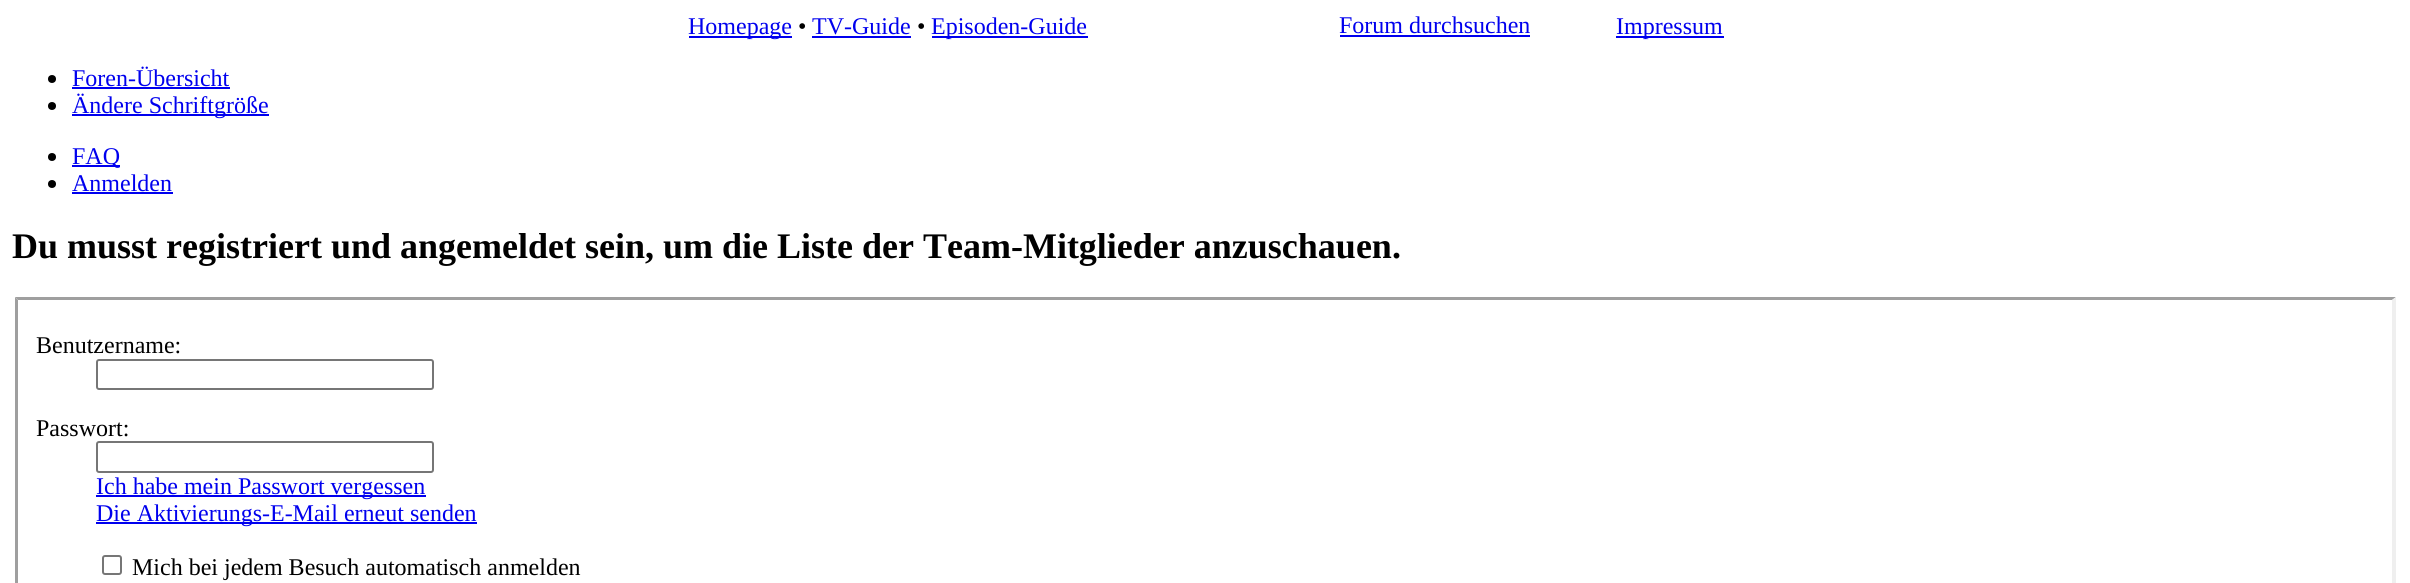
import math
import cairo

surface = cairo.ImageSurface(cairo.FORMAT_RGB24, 2410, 583)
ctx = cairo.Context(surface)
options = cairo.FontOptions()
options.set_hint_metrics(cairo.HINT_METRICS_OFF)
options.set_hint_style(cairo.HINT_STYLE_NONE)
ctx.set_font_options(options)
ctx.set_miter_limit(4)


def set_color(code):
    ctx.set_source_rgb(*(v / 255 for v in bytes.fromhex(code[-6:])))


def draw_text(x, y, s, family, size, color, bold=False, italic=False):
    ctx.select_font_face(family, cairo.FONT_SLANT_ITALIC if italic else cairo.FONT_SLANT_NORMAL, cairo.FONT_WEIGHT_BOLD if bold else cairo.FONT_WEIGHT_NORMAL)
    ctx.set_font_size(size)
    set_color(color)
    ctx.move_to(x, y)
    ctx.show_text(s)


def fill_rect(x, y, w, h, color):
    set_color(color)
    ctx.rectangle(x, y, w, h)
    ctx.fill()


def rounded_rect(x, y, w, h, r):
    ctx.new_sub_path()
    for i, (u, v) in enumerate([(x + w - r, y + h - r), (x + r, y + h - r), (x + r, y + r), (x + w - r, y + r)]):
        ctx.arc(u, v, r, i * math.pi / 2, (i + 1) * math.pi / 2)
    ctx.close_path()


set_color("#ffffff")
ctx.paint()
fill_rect(689, 36, 103, 2, "#0000ee")
draw_text(688, 34, "Homepage", "Liberation Serif", 24, "#0000ee")
draw_text(798, 34, "•", "Liberation Serif", 24, "#000000")
draw_text(812, 34, "TV-Guide", "Liberation Serif", 24, "#0000ee")
fill_rect(812, 36, 99, 2, "#0000ee")
draw_text(917, 34, "•", "Liberation Serif", 24, "#000000")
fill_rect(932, 36, 156, 2, "#0000ee")
draw_text(931, 34, "Episoden-Guide", "Liberation Serif", 24, "#0000ee")
draw_text(1339, 33, "Forum durchsuchen", "Liberation Serif", 24, "#0000ee")
fill_rect(1340, 35, 190, 2, "#0000ee")
fill_rect(1616, 36, 108, 2, "#0000ee")
draw_text(1616, 34, "Impressum", "Liberation Serif", 24, "#0000ee")
set_color("#000000")
ctx.new_path()
ctx.arc(52, 79, 4, 0, 2 * math.pi)
ctx.fill()
draw_text(72, 86, "Foren-Übersicht", "Liberation Serif", 24, "#0000ee")
fill_rect(72, 87, 158, 2, "#0000ee")
set_color("#000000")
ctx.new_path()
ctx.arc(52, 106, 4, 0, 2 * math.pi)
ctx.fill()
fill_rect(72, 114, 197, 2, "#0000ee")
draw_text(72, 113, "Ändere Schriftgröße", "Liberation Serif", 24, "#0000ee")
set_color("#000000")
ctx.new_path()
ctx.arc(52, 157, 4, 0, 2 * math.pi)
ctx.fill()
fill_rect(72, 165, 48, 2, "#0000ee")
draw_text(72, 164, "FAQ", "Liberation Serif", 24, "#0000ee")
set_color("#000000")
ctx.new_path()
ctx.arc(52, 184, 4, 0, 2 * math.pi)
ctx.fill()
draw_text(72, 191, "Anmelden", "Liberation Serif", 24, "#0000ee")
fill_rect(72, 192, 101, 2, "#0000ee")
draw_text(12, 258, "Du musst registriert und angemeldet sein, um die Liste der Team-Mitglieder anzuschauen.", "Liberation Serif", 36, "#000000", bold=True)
set_color("#9f9f9f")
ctx.new_path()
ctx.move_to(15, 297)
ctx.line_to(2396, 297)
ctx.line_to(2392, 300)
ctx.line_to(18, 300)
ctx.close_path()
ctx.fill()
set_color("#efefef")
ctx.new_path()
ctx.move_to(2396, 297)
ctx.line_to(2396, 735)
ctx.line_to(2392, 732)
ctx.line_to(2392, 300)
ctx.close_path()
ctx.fill()
set_color("#9f9f9f")
ctx.new_path()
ctx.move_to(15, 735)
ctx.line_to(15, 297)
ctx.line_to(18, 300)
ctx.line_to(18, 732)
ctx.close_path()
ctx.fill()
draw_text(36, 353, "Benutzername:", "Liberation Serif", 24, "#000000")
rounded_rect(97, 360, 336, 29, 2)
set_color("#767676")
ctx.stroke()
draw_text(36, 436, "Passwort:", "Liberation Serif", 24, "#000000")
rounded_rect(97, 442, 336, 30, 2)
set_color("#767676")
ctx.stroke()
fill_rect(96, 495, 330, 2, "#0000ee")
draw_text(96, 494, "Ich habe mein Passwort vergessen", "Liberation Serif", 24, "#0000ee")
fill_rect(96, 522, 381, 2, "#0000ee")
draw_text(96, 521, "Die Aktivierungs-E-Mail erneut senden", "Liberation Serif", 24, "#0000ee")
rounded_rect(103, 556, 18, 18, 2)
set_color("#767676")
ctx.stroke()
draw_text(132, 575, "Mich bei jedem Besuch automatisch anmelden", "Liberation Serif", 24, "#000000")
surface.write_to_png("output.png")
